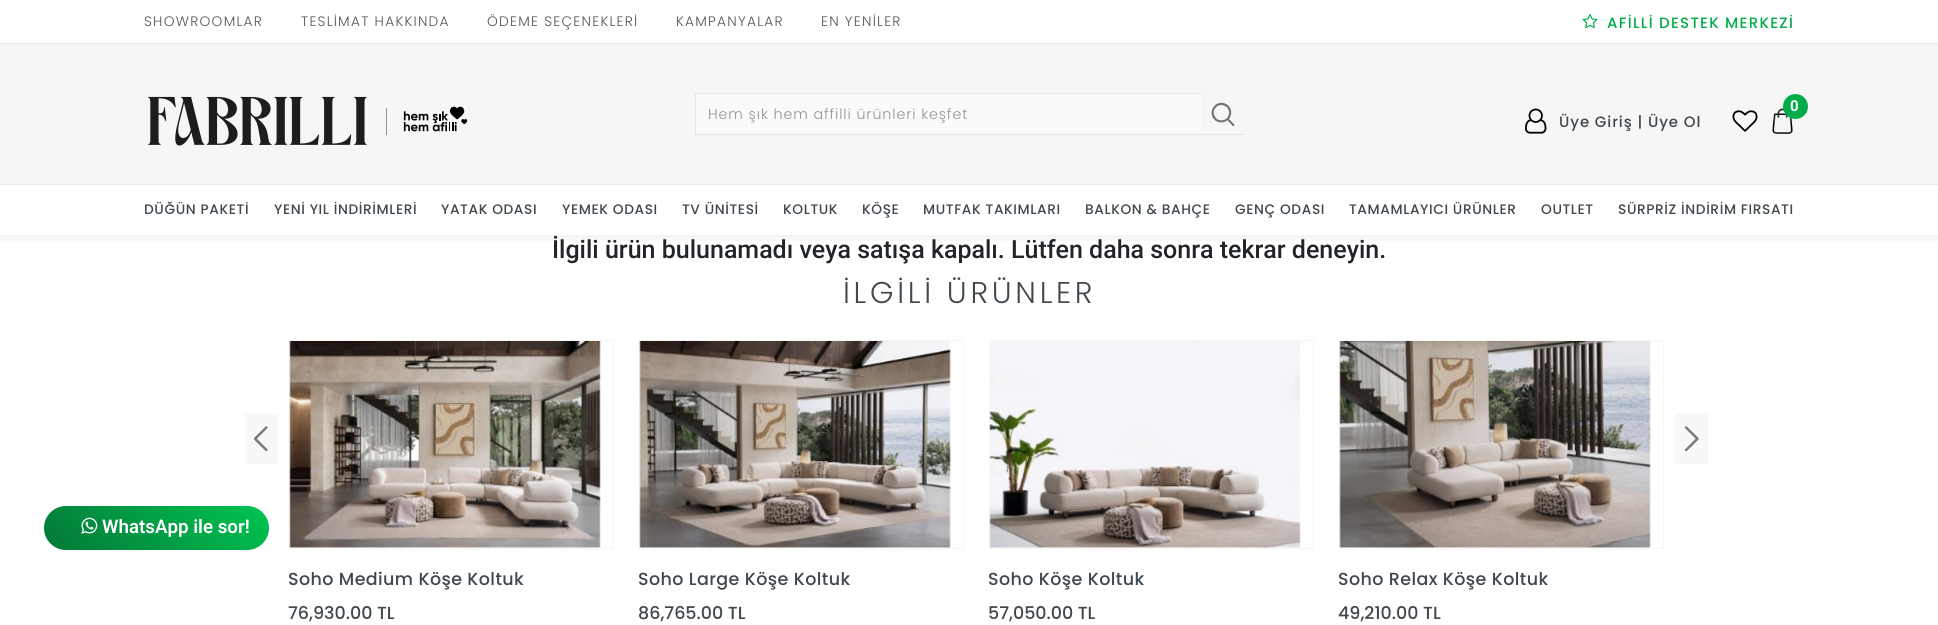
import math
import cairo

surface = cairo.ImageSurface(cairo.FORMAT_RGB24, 1938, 625)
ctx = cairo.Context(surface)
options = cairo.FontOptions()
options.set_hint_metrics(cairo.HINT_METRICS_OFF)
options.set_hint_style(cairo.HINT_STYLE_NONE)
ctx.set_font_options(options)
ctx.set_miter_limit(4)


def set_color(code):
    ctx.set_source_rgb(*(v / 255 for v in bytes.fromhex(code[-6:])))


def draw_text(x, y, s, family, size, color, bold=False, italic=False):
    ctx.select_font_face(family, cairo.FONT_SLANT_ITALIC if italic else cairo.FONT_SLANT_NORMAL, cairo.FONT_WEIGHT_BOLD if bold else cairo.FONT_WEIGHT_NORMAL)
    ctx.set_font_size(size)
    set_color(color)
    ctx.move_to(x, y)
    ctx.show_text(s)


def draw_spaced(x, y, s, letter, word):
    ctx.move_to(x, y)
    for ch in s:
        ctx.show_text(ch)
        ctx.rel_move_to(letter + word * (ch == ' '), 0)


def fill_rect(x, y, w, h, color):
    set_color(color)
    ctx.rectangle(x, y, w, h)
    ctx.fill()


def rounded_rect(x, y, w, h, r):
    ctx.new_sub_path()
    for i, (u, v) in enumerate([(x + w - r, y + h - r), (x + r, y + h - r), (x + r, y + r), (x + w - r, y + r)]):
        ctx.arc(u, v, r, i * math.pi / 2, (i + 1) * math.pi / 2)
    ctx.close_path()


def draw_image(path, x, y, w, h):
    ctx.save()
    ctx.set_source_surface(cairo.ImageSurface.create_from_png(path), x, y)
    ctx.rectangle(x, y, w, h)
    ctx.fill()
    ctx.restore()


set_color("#ffffff")
ctx.paint()
fill_rect(0, 43, 1938, 1, "#eaeaea")
ctx.select_font_face("Poppins Light")
ctx.set_font_size(13.75)
set_color("#555555")
draw_spaced(144, 26, "SHOWROOMLAR", 1.25, 0)
draw_spaced(301, 26, "TESLİMAT HAKKINDA", 1.25, 0)
draw_spaced(487, 26, "ÖDEME SEÇENEKLERİ", 1.25, 0)
draw_spaced(676, 26, "KAMPANYALAR", 1.25, 0)
draw_spaced(821, 26, "EN YENİLER", 1.25, 0)
draw_image("assets/img1.png", 1582, 13, 16, 16)
ctx.select_font_face("Poppins Medium")
ctx.set_font_size(15)
set_color("#02ad49")
draw_spaced(1607, 28, "AFİLLİ DESTEK MERKEZİ", 1.25, 0)
fill_rect(0, 44, 1938, 140, "#f6f6f6")
fill_rect(0, 184, 1938, 1, "#eaeaea")
draw_image("assets/img2.png", 148, 96, 320, 50)
fill_rect(696, 94, 505, 40, "#fafafa")
ctx.rectangle(695.5, 93.5, 549, 41)
set_color("#e5e5e5")
ctx.set_line_width(1)
ctx.stroke()
ctx.select_font_face("Poppins Light")
ctx.set_font_size(14.25)
set_color("#949494")
draw_spaced(708, 119, "Hem şık hem affilli ürünleri keşfet", 0.9, 0)
fill_rect(1201, 93, 44, 41, "#f6f6f6")
draw_image("assets/img3.png", 1211, 102, 24, 24)
draw_image("assets/img4.png", 1772, 108, 21, 26)
set_color("#02ad49")
ctx.arc(1795.5, 106.5, 12.5, 0, 2 * math.pi)
ctx.fill()
draw_text(1790, 111, "0", "Roboto", 15, "#ffffff", bold=True)
draw_image("assets/img5.png", 1525, 108, 22, 26)
ctx.select_font_face("Poppins Medium")
set_color("#40484e")
draw_spaced(1559, 127, "Üye Giriş | Üye Ol", 0.9, 0)
draw_image("assets/img6.png", 1732, 110, 26, 22)
ctx.set_font_size(13.75)
draw_spaced(144, 214, "DÜĞÜN PAKETİ", 0.6, 0)
draw_spaced(274, 214, "YENİ YIL İNDİRİMLERİ", 0.6, 0)
draw_spaced(441, 214, "YATAK ODASI", 0.6, 0)
draw_spaced(562, 214, "YEMEK ODASI", 0.6, 0)
draw_spaced(682, 214, "TV ÜNİTESİ", 0.6, 0)
draw_spaced(783, 214, "KOLTUK", 0.6, 0)
draw_spaced(862, 214, "KÖŞE", 0.6, 0)
draw_spaced(923, 214, "MUTFAK TAKIMLARI", 0.6, 0)
draw_spaced(1085, 214, "BALKON & BAHÇE", 0.6, 0)
draw_spaced(1235, 214, "GENÇ ODASI", 0.6, 0)
draw_spaced(1349, 214, "TAMAMLAYICI ÜRÜNLER", 0.6, 0)
draw_spaced(1541, 214, "OUTLET", 0.6, 0)
draw_spaced(1618, 214, "SÜRPRİZ İNDİRİM FIRSATI", 0.6, 0)
gradient = cairo.LinearGradient(969, 245, 969, 235)
gradient.add_color_stop_rgba(0, 0.212, 0.204, 0.176, 0)
gradient.add_color_stop_rgba(1, 0.212, 0.204, 0.176, 0.06)
ctx.set_source(gradient)
ctx.rectangle(0, 235, 1938, 6)
ctx.fill()
gradient = cairo.LinearGradient(89, 595, 223, 461)
gradient.add_color_stop_rgba(0, 0.016, 0.467, 0.216, 1)
gradient.add_color_stop_rgba(1, 0, 0.769, 0.318, 1)
ctx.set_source(gradient)
rounded_rect(44, 506, 225, 44, 22)
ctx.fill()
draw_image("assets/img7.png", 81, 517, 17, 17)
draw_text(102, 533, "WhatsApp ile sor!", "Roboto SemiBold", 18.75, "#ffffff")
draw_text(552, 258, "İlgili ürün bulunamadı veya satışa kapalı. Lütfen daha sonra tekrar deneyin.", "Roboto Medium", 25, "#212529")
ctx.select_font_face("Poppins Light")
ctx.set_font_size(30)
set_color("#40484e")
draw_spaced(843, 303, "İLGİLİ ÜRÜNLER", 3.75, 0)
fill_rect(245, 414, 33, 50, "#f8f8f8")
draw_image("assets/img8.png", 254, 426, 14, 25)
fill_rect(1675, 414, 33, 50, "#f8f8f8")
draw_image("assets/img9.png", 1684, 426, 15, 25)
ctx.rectangle(289.5, 340.5, 324, 208)
set_color("#f5f5f5")
ctx.stroke()
draw_image("assets/img10.png", 289, 341, 312, 207)
ctx.select_font_face("Poppins Medium")
ctx.set_font_size(17.5)
set_color("#40484e")
draw_spaced(288, 585, "Soho Medium Köşe Koltuk", 0.4, 0)
draw_text(288, 619, "76,930.00 TL", "Poppins Medium", 17.5, "#40484e")
ctx.rectangle(639.5, 340.5, 324, 208)
set_color("#f5f5f5")
ctx.stroke()
draw_image("assets/img11.png", 639, 341, 312, 207)
set_color("#40484e")
draw_spaced(638, 585, "Soho Large Köşe Koltuk", 0.4, 0)
draw_text(638, 619, "86,765.00 TL", "Poppins Medium", 17.5, "#40484e")
ctx.rectangle(989.5, 340.5, 324, 208)
set_color("#f5f5f5")
ctx.stroke()
draw_image("assets/img12.png", 989, 341, 312, 207)
set_color("#40484e")
draw_spaced(988, 585, "Soho Köşe Koltuk", 0.4, 0)
draw_text(988, 619, "57,050.00 TL", "Poppins Medium", 17.5, "#40484e")
ctx.rectangle(1339.5, 340.5, 324, 208)
set_color("#f5f5f5")
ctx.stroke()
draw_image("assets/img13.png", 1339, 341, 312, 207)
set_color("#40484e")
draw_spaced(1338, 585, "Soho Relax Köşe Koltuk", 0.4, 0)
draw_text(1338, 619, "49,210.00 TL", "Poppins Medium", 17.5, "#40484e")
surface.write_to_png("output.png")
